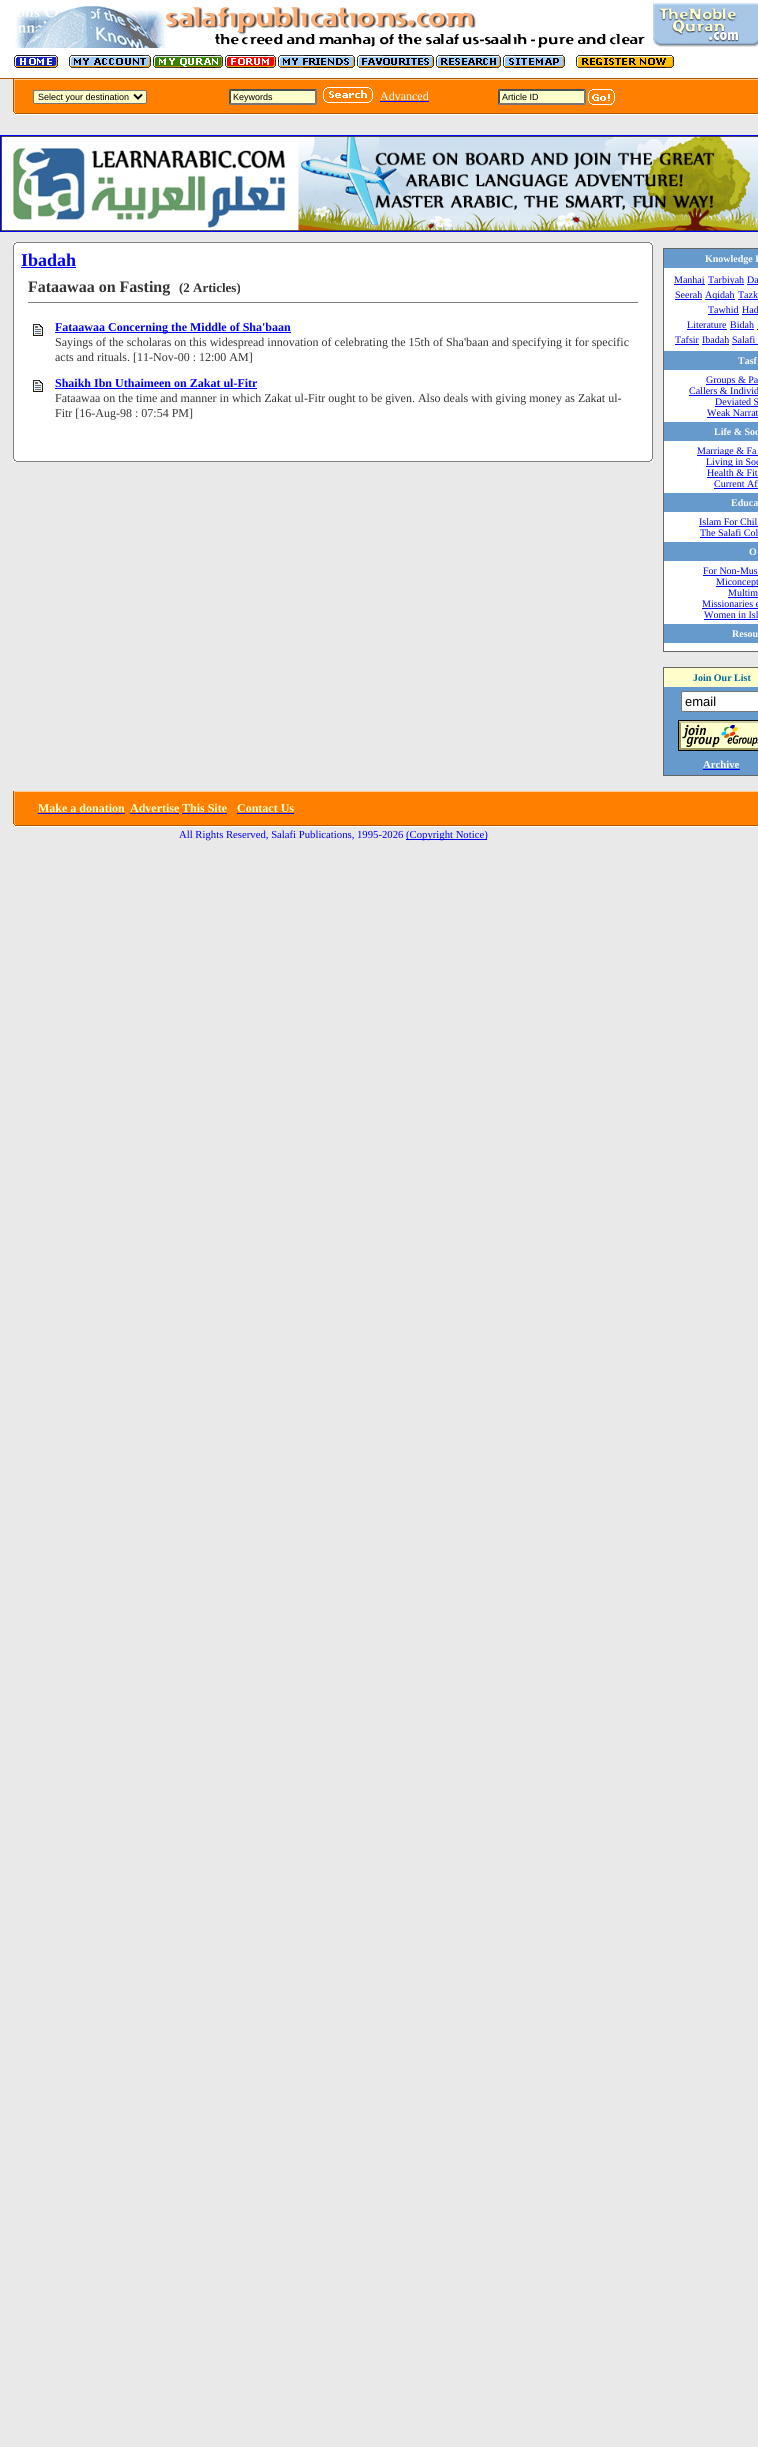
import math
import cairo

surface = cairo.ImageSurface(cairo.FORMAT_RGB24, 758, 2447)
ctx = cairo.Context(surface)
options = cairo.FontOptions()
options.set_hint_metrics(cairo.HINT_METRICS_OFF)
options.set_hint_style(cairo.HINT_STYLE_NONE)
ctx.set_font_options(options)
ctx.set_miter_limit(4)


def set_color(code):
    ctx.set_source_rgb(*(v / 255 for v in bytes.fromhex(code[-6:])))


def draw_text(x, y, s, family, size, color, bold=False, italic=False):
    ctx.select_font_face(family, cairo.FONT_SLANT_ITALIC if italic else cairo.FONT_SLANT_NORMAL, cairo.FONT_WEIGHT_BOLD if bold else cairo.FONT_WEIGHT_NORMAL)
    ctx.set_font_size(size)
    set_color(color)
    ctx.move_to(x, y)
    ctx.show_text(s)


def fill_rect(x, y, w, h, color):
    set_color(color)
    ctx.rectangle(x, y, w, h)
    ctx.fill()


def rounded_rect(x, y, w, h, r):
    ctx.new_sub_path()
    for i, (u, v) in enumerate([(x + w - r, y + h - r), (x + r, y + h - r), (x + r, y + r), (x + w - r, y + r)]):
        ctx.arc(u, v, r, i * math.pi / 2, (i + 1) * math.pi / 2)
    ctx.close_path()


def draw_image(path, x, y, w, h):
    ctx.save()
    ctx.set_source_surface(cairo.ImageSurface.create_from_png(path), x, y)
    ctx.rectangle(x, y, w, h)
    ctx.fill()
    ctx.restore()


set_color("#e9e9e9")
ctx.paint()
fill_rect(0, 0, 758, 78, "#ffffff")
draw_image("assets/img1.png", 14, 6, 631, 42)
draw_image("assets/img2.png", 652, 3, 106, 44)
draw_image("assets/img3.png", 14, 55, 44, 13)
draw_image("assets/img4.png", 69, 55, 82, 13)
draw_image("assets/img5.png", 153, 55, 70, 13)
draw_image("assets/img6.png", 225, 55, 51, 13)
draw_image("assets/img7.png", 278, 55, 77, 13)
draw_image("assets/img8.png", 357, 55, 77, 13)
draw_image("assets/img9.png", 436, 55, 65, 13)
draw_image("assets/img10.png", 503, 55, 62, 13)
draw_image("assets/img11.png", 576, 55, 98, 13)
fill_rect(0, 78, 758, 1, "#b05800")
fill_rect(14, 79, 744, 1, "#ffc992")
draw_image("assets/img12.png", 0, 79, 14, 1)
fill_rect(15, 80, 743, 33, "#ff8000")
draw_image("assets/img13.png", 0, 80, 16, 33)
set_color("#ffffcc")
rounded_rect(33.5, 90.5, 113, 13, 1.5)
ctx.fill_preserve()
set_color("#767676")
ctx.set_line_width(1)
ctx.stroke()
ctx.new_path()
ctx.move_to(134, 94.5)
ctx.line_to(138, 98.5)
ctx.line_to(142, 94.5)
set_color("#000000")
ctx.set_line_width(2)
ctx.stroke()
draw_text(38, 100, "Select your destination", "Liberation Sans", 9, "#000000")
fill_rect(229, 89, 88, 16, "#ffffcc")
set_color("#4f4f4f")
ctx.new_path()
ctx.move_to(229, 89)
ctx.line_to(317, 89)
ctx.line_to(315, 91)
ctx.line_to(231, 91)
ctx.close_path()
ctx.fill()
set_color("#767676")
ctx.new_path()
ctx.move_to(317, 89)
ctx.line_to(317, 105)
ctx.line_to(315, 103)
ctx.line_to(315, 91)
ctx.close_path()
ctx.fill()
ctx.new_path()
ctx.move_to(317, 105)
ctx.line_to(229, 105)
ctx.line_to(231, 103)
ctx.line_to(315, 103)
ctx.close_path()
ctx.fill()
set_color("#4f4f4f")
ctx.new_path()
ctx.move_to(229, 105)
ctx.line_to(229, 89)
ctx.line_to(231, 91)
ctx.line_to(231, 103)
ctx.close_path()
ctx.fill()
draw_text(233, 100, "Keywords", "Liberation Sans", 9, "#000000")
draw_image("assets/img14.png", 323, 87, 50, 16)
draw_text(380, 100, "Advanced", "Liberation Serif", 12, "#ffffff")
fill_rect(380, 101, 49, 1, "#0000ff")
fill_rect(498, 89, 88, 16, "#ffffcc")
set_color("#4f4f4f")
ctx.new_path()
ctx.move_to(498, 89)
ctx.line_to(586, 89)
ctx.line_to(584, 91)
ctx.line_to(500, 91)
ctx.close_path()
ctx.fill()
set_color("#767676")
ctx.new_path()
ctx.move_to(586, 89)
ctx.line_to(586, 105)
ctx.line_to(584, 103)
ctx.line_to(584, 91)
ctx.close_path()
ctx.fill()
ctx.new_path()
ctx.move_to(586, 105)
ctx.line_to(498, 105)
ctx.line_to(500, 103)
ctx.line_to(584, 103)
ctx.close_path()
ctx.fill()
set_color("#4f4f4f")
ctx.new_path()
ctx.move_to(498, 105)
ctx.line_to(498, 89)
ctx.line_to(500, 91)
ctx.line_to(500, 103)
ctx.close_path()
ctx.fill()
draw_text(502, 100, "Article ID", "Liberation Sans", 9, "#000000")
draw_image("assets/img15.png", 588, 89, 27, 16)
fill_rect(15, 113, 743, 1, "#b05800")
draw_image("assets/img16.png", 0, 113, 15, 1)
fill_rect(14, 114, 744, 1, "#ffffff")
ctx.rectangle(0.5, 135.5, 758, 96)
set_color("#0000ff")
ctx.set_line_width(1)
ctx.stroke()
draw_image("assets/img17.png", 1, 136, 757, 95)
fill_rect(14, 243, 638, 218, "#ffffff")
draw_image("assets/img18.png", 13, 242, 8, 8)
fill_rect(21, 242, 624, 1, "#808080")
draw_image("assets/img19.png", 645, 242, 8, 8)
fill_rect(13, 250, 1, 204, "#808080")
draw_text(21, 266, "Ibadah", "Liberation Serif", 18, "#0000ff", bold=True)
fill_rect(21, 267, 55, 1, "#0000ff")
draw_text(28, 292, "Fataawaa on Fasting", "Liberation Serif", 16, "#333333", bold=True)
draw_text(179, 292, "(2 Articles)", "Liberation Serif", 13, "#333333", bold=True)
fill_rect(28, 302, 610, 1, "#808080")
draw_image("assets/img20.png", 33, 324, 10, 12)
fill_rect(55, 332, 236, 1, "#0000ff")
draw_text(55, 331, "Fataawaa Concerning the Middle of Sha'baan", "Liberation Serif", 12, "#0000ff", bold=True)
draw_text(55, 346, "Sayings of the scholaras on this widespread innovation of celebrating the 15th of Sha'baan and specifying it for specific", "Liberation Serif", 12, "#333333")
draw_text(55, 361, "acts and rituals. [11-Nov-00 : 12:00 AM]", "Liberation Serif", 12, "#333333")
draw_image("assets/img20.png", 33, 380, 10, 12)
draw_text(55, 387, "Shaikh Ibn Uthaimeen on Zakat ul-Fitr", "Liberation Serif", 12, "#0000ff", bold=True)
fill_rect(55, 388, 202, 1, "#0000ff")
draw_text(55, 402, "Fataawaa on the time and manner in which Zakat ul-Fitr ought to be given. Also deals with giving money as Zakat ul-", "Liberation Serif", 12, "#333333")
draw_text(55, 417, "Fitr [16-Aug-98 : 07:54 PM]", "Liberation Serif", 12, "#333333")
fill_rect(652, 250, 1, 204, "#808080")
draw_image("assets/img21.png", 13, 454, 8, 8)
fill_rect(21, 461, 624, 1, "#808080")
draw_image("assets/img22.png", 645, 454, 8, 8)
fill_rect(663, 248, 95, 404, "#666666")
fill_rect(664, 268, 94, 383, "#ffffff")
fill_rect(664, 249, 94, 19, "#6699cc")
draw_text(705, 262, "Knowledge B", "Liberation Serif", 10, "#ffffff", bold=True)
fill_rect(674, 284, 31, 1, "#0000ff")
draw_text(674, 283, "Manhaj", "Liberation Serif", 10, "#0000ff")
fill_rect(708, 284, 36, 1, "#0000ff")
draw_text(708, 283, "Tarbiyah", "Liberation Serif", 10, "#0000ff")
draw_text(747, 283, "Da", "Liberation Serif", 10, "#0000ff")
fill_rect(747, 284, 11, 1, "#0000ff")
draw_text(675, 298, "Seerah", "Liberation Serif", 10, "#0000ff")
fill_rect(675, 299, 27, 1, "#0000ff")
fill_rect(705, 299, 30, 1, "#0000ff")
draw_text(705, 298, "Aqidah", "Liberation Serif", 10, "#0000ff")
draw_text(738, 298, "Tazk", "Liberation Serif", 10, "#0000ff")
fill_rect(738, 299, 20, 1, "#0000ff")
draw_text(708, 313, "Tawhid", "Liberation Serif", 10, "#0000ff")
fill_rect(708, 314, 31, 1, "#0000ff")
draw_text(742, 313, "Had", "Liberation Serif", 10, "#0000ff")
fill_rect(742, 314, 16, 1, "#0000ff")
draw_text(687, 328, "Literature", "Liberation Serif", 10, "#0000ff")
fill_rect(687, 329, 40, 1, "#0000ff")
draw_text(730, 328, "Bidah", "Liberation Serif", 10, "#0000ff")
fill_rect(730, 329, 24, 1, "#0000ff")
fill_rect(757, 329, 1, 1, "#0000ff")
draw_text(675, 343, "Tafsir", "Liberation Serif", 10, "#0000ff")
fill_rect(675, 344, 24, 1, "#0000ff")
draw_text(702, 343, "Ibadah", "Liberation Serif", 10, "#0000ff")
fill_rect(702, 344, 27, 1, "#0000ff")
draw_text(732, 343, "Salafi", "Liberation Serif", 10, "#0000ff")
fill_rect(732, 344, 26, 1, "#0000ff")
fill_rect(664, 351, 94, 19, "#6699cc")
draw_text(738, 364, "Tasf", "Liberation Serif", 10, "#ffffff", bold=True)
fill_rect(706, 384, 52, 1, "#0000ff")
draw_text(706, 383, "Groups & Pa", "Liberation Serif", 10, "#0000ff")
draw_text(689, 394, "Callers & Individ", "Liberation Serif", 10, "#0000ff")
fill_rect(689, 395, 69, 1, "#0000ff")
draw_text(715, 405, "Deviated S", "Liberation Serif", 10, "#0000ff")
fill_rect(715, 406, 43, 1, "#0000ff")
draw_text(707, 416, "Weak Narrat", "Liberation Serif", 10, "#0000ff")
fill_rect(707, 417, 51, 1, "#0000ff")
fill_rect(664, 422, 94, 19, "#6699cc")
draw_text(714, 435, "Life & Soc", "Liberation Serif", 10, "#ffffff", bold=True)
fill_rect(697, 455, 61, 1, "#0000ff")
draw_text(697, 454, "Marriage & Fa", "Liberation Serif", 10, "#0000ff")
fill_rect(706, 466, 52, 1, "#0000ff")
draw_text(706, 465, "Living in Soc", "Liberation Serif", 10, "#0000ff")
draw_text(707, 476, "Health & Fit", "Liberation Serif", 10, "#0000ff")
fill_rect(707, 477, 51, 1, "#0000ff")
draw_text(714, 487, "Current Af", "Liberation Serif", 10, "#0000ff")
fill_rect(714, 488, 44, 1, "#0000ff")
fill_rect(664, 493, 94, 19, "#6699cc")
draw_text(731, 506, "Educa", "Liberation Serif", 10, "#ffffff", bold=True)
draw_text(699, 525, "Islam For Chil", "Liberation Serif", 10, "#0000ff")
fill_rect(699, 526, 59, 1, "#0000ff")
draw_text(700, 536, "The Salafi Col", "Liberation Serif", 10, "#0000ff")
fill_rect(700, 537, 58, 1, "#0000ff")
fill_rect(664, 542, 94, 19, "#6699cc")
draw_text(749, 555, "O", "Liberation Serif", 10, "#ffffff", bold=True)
draw_text(703, 574, "For Non-Mus", "Liberation Serif", 10, "#0000ff")
fill_rect(703, 575, 55, 1, "#0000ff")
fill_rect(716, 586, 42, 1, "#0000ff")
draw_text(716, 585, "Miconcept", "Liberation Serif", 10, "#0000ff")
draw_text(728, 596, "Multim", "Liberation Serif", 10, "#0000ff")
fill_rect(728, 597, 30, 1, "#0000ff")
draw_text(702, 607, "Missionaries e", "Liberation Serif", 10, "#0000ff")
fill_rect(702, 608, 56, 1, "#0000ff")
draw_text(704, 618, "Women in Isl", "Liberation Serif", 10, "#0000ff")
fill_rect(704, 619, 54, 1, "#0000ff")
fill_rect(664, 624, 94, 19, "#6699cc")
draw_text(732, 637, "Resou", "Liberation Serif", 10, "#ffffff", bold=True)
fill_rect(663, 667, 95, 109, "#666666")
fill_rect(664, 687, 94, 88, "#6699cc")
fill_rect(664, 668, 94, 19, "#ffffcc")
draw_text(693, 681, "Join Our List", "Liberation Serif", 10, "#006699", bold=True)
set_color("#ffffff")
rounded_rect(681.5, 691.5, 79, 20, 1.5)
ctx.fill_preserve()
set_color("#767676")
ctx.stroke()
draw_text(685, 706, "email", "Liberation Sans", 13, "#000000")
draw_image("assets/img23.png", 678, 720, 80, 31)
draw_text(703, 768, "Archive", "Liberation Serif", 10.7, "#ffffff", bold=True)
fill_rect(703, 769, 37, 1, "#0000ff")
fill_rect(14, 791, 744, 1, "#ffc992")
draw_image("assets/img12.png", 0, 791, 14, 1)
fill_rect(16, 792, 742, 33, "#ff8000")
draw_image("assets/img24.png", 0, 792, 16, 33)
draw_text(38, 812, "Make a donation", "Liberation Serif", 12, "#ffffcc", bold=True)
fill_rect(38, 813, 87, 1, "#0000ff")
draw_text(130, 812, "Advertise", "Liberation Serif", 12, "#ffffcc", bold=True)
fill_rect(130, 813, 49, 1, "#0000ff")
draw_text(182, 812, "This Site", "Liberation Serif", 12, "#ffffcc", bold=True)
fill_rect(182, 813, 45, 1, "#0000ff")
draw_text(237, 812, "Contact Us", "Liberation Serif", 12, "#ffffcc", bold=True)
fill_rect(237, 813, 57, 1, "#0000ff")
fill_rect(15, 825, 743, 1, "#b05800")
draw_image("assets/img16.png", 0, 825, 15, 1)
fill_rect(14, 826, 744, 1, "#ffffff")
draw_text(179, 838, "All Rights Reserved, Salafi Publications, 1995-2026", "Liberation Serif", 10.7, "#0000ff")
fill_rect(406, 839, 81, 1, "#0000ff")
draw_text(406, 838, "(Copyright Notice)", "Liberation Serif", 10.7, "#0000ff")
surface.write_to_png("output.png")
